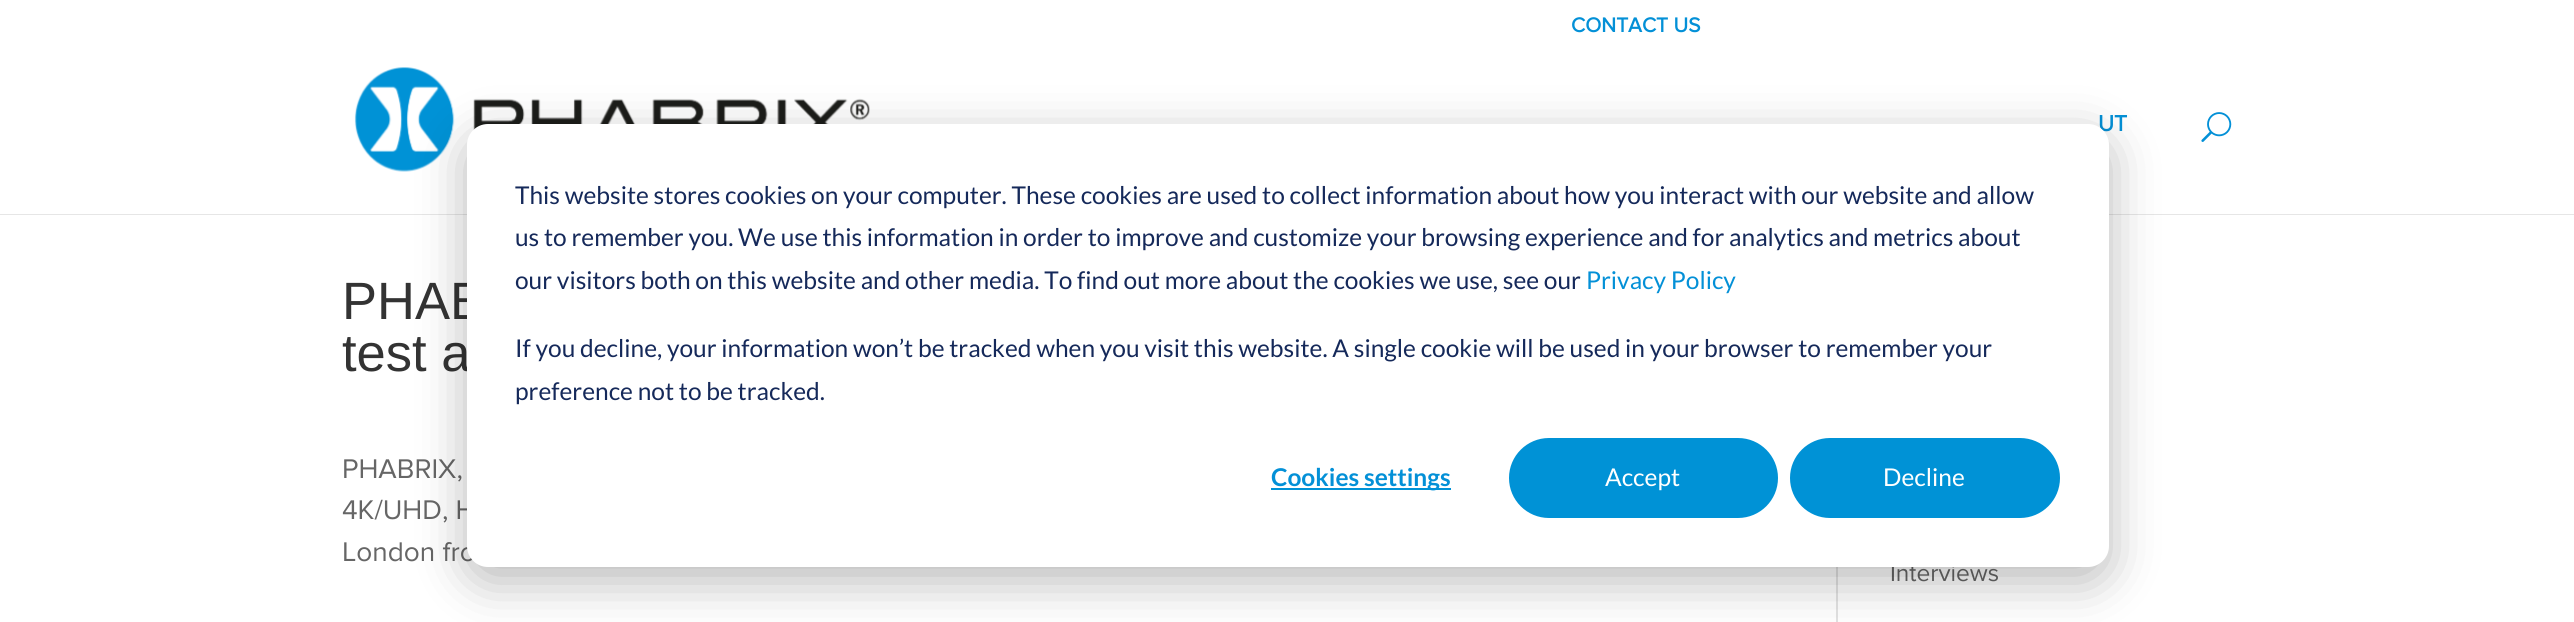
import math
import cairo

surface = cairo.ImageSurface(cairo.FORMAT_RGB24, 2574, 622)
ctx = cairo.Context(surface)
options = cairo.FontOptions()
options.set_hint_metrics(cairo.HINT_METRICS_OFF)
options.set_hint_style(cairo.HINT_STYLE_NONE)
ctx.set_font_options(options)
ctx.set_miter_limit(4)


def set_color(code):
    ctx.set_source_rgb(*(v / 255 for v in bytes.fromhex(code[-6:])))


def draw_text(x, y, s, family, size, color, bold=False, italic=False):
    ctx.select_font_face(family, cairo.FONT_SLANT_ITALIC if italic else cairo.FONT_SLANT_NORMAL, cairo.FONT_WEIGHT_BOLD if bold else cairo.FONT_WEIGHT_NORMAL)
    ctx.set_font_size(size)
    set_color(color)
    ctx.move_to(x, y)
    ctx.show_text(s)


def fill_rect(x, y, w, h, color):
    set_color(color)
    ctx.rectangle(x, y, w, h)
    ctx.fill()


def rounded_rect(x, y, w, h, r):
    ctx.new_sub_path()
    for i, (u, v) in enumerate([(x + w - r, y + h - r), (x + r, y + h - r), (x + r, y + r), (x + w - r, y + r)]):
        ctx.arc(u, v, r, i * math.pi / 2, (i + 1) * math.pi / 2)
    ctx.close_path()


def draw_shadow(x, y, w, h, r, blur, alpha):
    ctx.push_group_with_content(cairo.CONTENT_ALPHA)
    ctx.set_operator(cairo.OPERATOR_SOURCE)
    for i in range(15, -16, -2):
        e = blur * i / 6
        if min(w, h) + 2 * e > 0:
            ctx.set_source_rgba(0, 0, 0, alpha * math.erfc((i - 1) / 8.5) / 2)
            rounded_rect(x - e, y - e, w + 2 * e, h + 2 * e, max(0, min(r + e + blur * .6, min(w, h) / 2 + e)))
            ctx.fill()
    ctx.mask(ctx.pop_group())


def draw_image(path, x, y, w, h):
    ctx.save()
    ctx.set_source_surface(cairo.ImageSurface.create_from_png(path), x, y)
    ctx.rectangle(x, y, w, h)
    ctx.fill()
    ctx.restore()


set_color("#ffffff")
ctx.paint()
fill_rect(0, 214, 2574, 1, "#e6e6e6")
draw_text(1571, 32, "CONTACT US", "Proxima Nova", 21, "#0390d7", bold=True)
draw_image("assets/img1.png", 354, 67, 516, 105)
draw_text(2098, 131, "UT", "Proxima Nova", 23, "#0390d7", bold=True)
draw_image("assets/img2.png", 2201, 112, 31, 30)
draw_text(342, 319, "PHAB", "Liberation Sans", 52.5, "#333333")
draw_text(342, 371, "test a", "Liberation Sans", 52.5, "#333333")
draw_text(342, 478, "PHABRIX,", "Proxima Nova", 28, "#666666")
draw_text(342, 519, "4K/UHD, H", "Proxima Nova", 28, "#666666")
draw_text(342, 561, "London fro", "Proxima Nova", 28, "#666666")
draw_text(1890, 581, "Interviews", "Proxima Nova", 24.5, "#666666")
fill_rect(1836, 567, 2, 55, "#e2e2e2")
set_color("#000000")
draw_shadow(467, 138, 1642, 443, 21, 24.5, 0.28)
set_color("#ffffff")
rounded_rect(467, 124, 1642, 443, 21)
ctx.fill()
draw_text(515, 204, "This website stores cookies on your computer. These cookies are used to collect information about how you interact with our website and allow", "Lato", 24.5, "#15295a")
draw_text(515, 246, "us to remember you. We use this information in order to improve and customize your browsing experience and for analytics and metrics about", "Lato", 24.5, "#15295a")
draw_text(515, 289, "our visitors both on this website and other media. To find out more about the cookies we use, see our", "Lato", 24.5, "#15295a")
draw_text(1586, 289, "Privacy Policy", "Lato", 24.5, "#0390d7")
draw_text(515, 357, "If you decline, your information won’t be tracked when you visit this website. A single cookie will be used in your browser to remember your", "Lato", 24.5, "#15295a")
draw_text(515, 400, "preference not to be tracked.", "Lato", 24.5, "#15295a")
fill_rect(1271, 488, 180, 2, "#0092d6")
draw_text(1271, 486, "Cookies settings", "Lato", 24.5, "#0390d7", bold=True)
set_color("#0092d6")
rounded_rect(1510, 439, 267, 78, 39)
ctx.fill_preserve()
ctx.stroke()
draw_text(1605, 486, "Accept", "Lato", 24.5, "#ffffff")
set_color("#0092d6")
rounded_rect(1791, 439, 268, 78, 39)
ctx.fill_preserve()
ctx.stroke()
draw_text(1883, 486, "Decline", "Lato", 24.5, "#ffffff")
surface.write_to_png("output.png")
